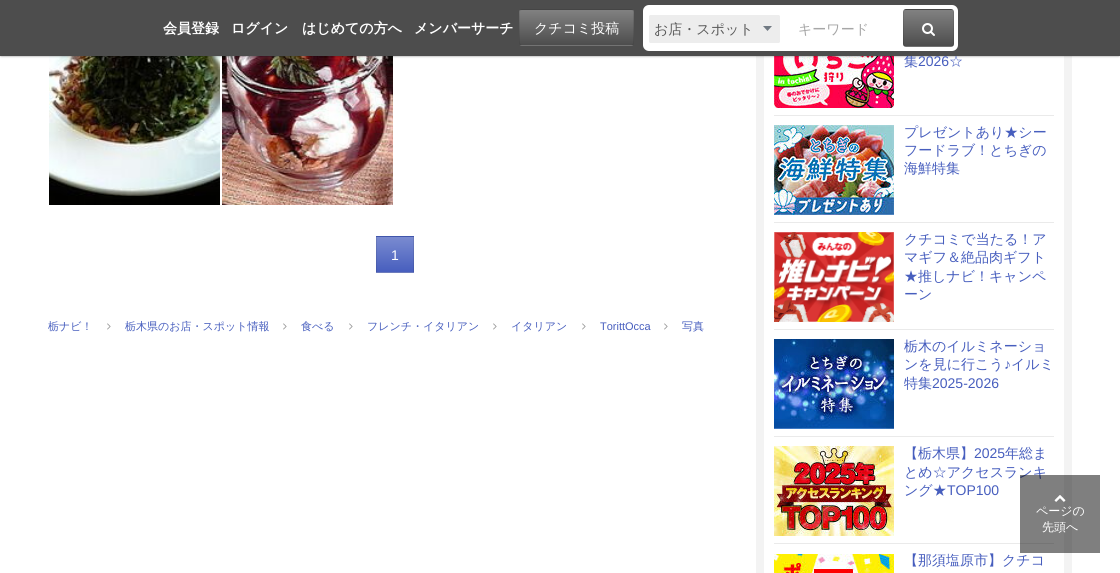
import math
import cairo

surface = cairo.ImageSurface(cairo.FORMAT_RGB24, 1120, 573)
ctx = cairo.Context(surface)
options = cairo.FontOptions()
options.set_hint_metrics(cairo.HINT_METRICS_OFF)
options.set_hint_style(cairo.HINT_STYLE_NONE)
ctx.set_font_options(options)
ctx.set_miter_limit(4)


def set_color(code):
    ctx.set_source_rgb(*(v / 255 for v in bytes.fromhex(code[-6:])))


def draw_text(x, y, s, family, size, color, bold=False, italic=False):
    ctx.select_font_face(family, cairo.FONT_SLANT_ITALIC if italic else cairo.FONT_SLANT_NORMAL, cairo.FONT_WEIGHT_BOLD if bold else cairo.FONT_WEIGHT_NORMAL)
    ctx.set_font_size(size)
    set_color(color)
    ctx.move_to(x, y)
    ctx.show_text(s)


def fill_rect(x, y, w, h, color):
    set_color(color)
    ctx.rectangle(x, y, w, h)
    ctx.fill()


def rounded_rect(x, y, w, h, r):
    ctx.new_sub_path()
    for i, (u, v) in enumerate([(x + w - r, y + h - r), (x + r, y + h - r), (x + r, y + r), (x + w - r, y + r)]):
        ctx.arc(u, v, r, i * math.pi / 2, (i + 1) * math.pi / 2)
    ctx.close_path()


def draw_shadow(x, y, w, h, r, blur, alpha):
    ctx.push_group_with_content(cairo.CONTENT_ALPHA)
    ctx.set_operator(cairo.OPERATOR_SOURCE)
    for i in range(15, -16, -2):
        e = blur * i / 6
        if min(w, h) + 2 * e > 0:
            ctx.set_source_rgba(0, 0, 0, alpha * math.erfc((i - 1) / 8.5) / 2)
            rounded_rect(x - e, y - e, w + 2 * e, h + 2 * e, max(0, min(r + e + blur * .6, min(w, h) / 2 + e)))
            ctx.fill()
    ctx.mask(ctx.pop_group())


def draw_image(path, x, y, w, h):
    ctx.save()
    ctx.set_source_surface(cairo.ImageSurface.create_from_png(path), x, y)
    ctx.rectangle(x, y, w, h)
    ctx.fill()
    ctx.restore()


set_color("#ffffff")
ctx.paint()
draw_image("assets/img2.png", 49, 56, 171, 149)
draw_image("assets/img3.png", 222, 56, 171, 149)
fill_rect(756, 56, 316, 517, "#f3f3f3")
fill_rect(764, 56, 300, 517, "#ffffff")
draw_image("assets/img5.png", 774, 56, 120, 52)
set_color("#000000")
draw_shadow(1, 1, 1118, 54, 0, 1.5, 1)
draw_text(904, 66, "集", "WenQuanYi Zen Hei Medium", 14, "#475ebe")
draw_text(949, 66, "☆", "WenQuanYi Zen Hei Medium", 14, "#475ebe")
fill_rect(0, 0, 1120, 56, "#4d4d4d")
draw_text(163, 33, "会員登録", "WenQuanYi Zen Hei", 14, "#ffffff", bold=True)
draw_text(231, 33, "ログイン", "WenQuanYi Zen Hei", 14, "#ffffff", bold=True)
draw_text(302, 33, "はじめての方へ", "WenQuanYi Zen Hei", 14, "#ffffff", bold=True)
draw_text(414, 33, "メンバーサーチ", "WenQuanYi Zen Hei", 14, "#ffffff", bold=True)
ctx.save()
rounded_rect(519, 9, 115, 37, 3)
ctx.clip()
gradient = cairo.LinearGradient(577, 10, 577, 45)
gradient.add_color_stop_rgba(0, 0.506, 0.506, 0.506, 1)
gradient.add_color_stop_rgba(1, 0.302, 0.302, 0.302, 1)
ctx.set_source(gradient)
ctx.rectangle(519, 10, 115, 35)
ctx.fill()
gradient = cairo.LinearGradient(577, 45, 577, 80)
gradient.add_color_stop_rgba(0, 0.506, 0.506, 0.506, 1)
gradient.add_color_stop_rgba(1, 0.302, 0.302, 0.302, 1)
ctx.set_source(gradient)
ctx.rectangle(519, 45, 115, 1)
ctx.fill()
ctx.restore()
rounded_rect(519.5, 9.5, 114, 36, 2.5)
ctx.set_source_rgba(0, 0, 0, 0.1)
ctx.set_line_width(1)
ctx.stroke()
draw_text(534, 33, "クチコミ投稿", "WenQuanYi Zen Hei Medium", 14, "#ffffff")
rounded_rect(643, 5, 315, 46, 6)
ctx.fill()
set_color("#ededed")
rounded_rect(649, 15, 131, 28, 2)
ctx.fill()
set_color("#717a83")
ctx.new_path()
ctx.move_to(772, 26)
ctx.line_to(767.5, 31)
ctx.line_to(763, 26)
ctx.close_path()
ctx.fill()
rounded_rect(649.5, 15.5, 130, 27, 1.5)
set_color("#ededed")
ctx.stroke()
draw_text(654, 34, "お店・スポット", "WenQuanYi Zen Hei Medium", 14, "#5a5a5a")
draw_text(798, 34, "キーワード", "WenQuanYi Zen Hei Medium", 14, "#a7a7a7")
ctx.save()
rounded_rect(903, 9, 51, 38, 3)
ctx.clip()
gradient = cairo.LinearGradient(929, -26, 929, 10)
gradient.add_color_stop_rgba(0, 0.506, 0.506, 0.506, 1)
gradient.add_color_stop_rgba(1, 0.302, 0.302, 0.302, 1)
ctx.set_source(gradient)
ctx.rectangle(903, 9, 51, 1)
ctx.fill()
gradient = cairo.LinearGradient(929, 10, 929, 46)
gradient.add_color_stop_rgba(0, 0.506, 0.506, 0.506, 1)
gradient.add_color_stop_rgba(1, 0.302, 0.302, 0.302, 1)
ctx.set_source(gradient)
ctx.rectangle(903, 10, 51, 36)
ctx.fill()
gradient = cairo.LinearGradient(929, 46, 929, 82)
gradient.add_color_stop_rgba(0, 0.506, 0.506, 0.506, 1)
gradient.add_color_stop_rgba(1, 0.302, 0.302, 0.302, 1)
ctx.set_source(gradient)
ctx.rectangle(903, 46, 51, 1)
ctx.fill()
ctx.restore()
rounded_rect(903.5, 9.5, 50, 37, 2.5)
ctx.set_source_rgba(0, 0, 0, 0.1)
ctx.stroke()
draw_image("assets/img1.png", 922, 23, 13, 13)
fill_rect(376, 236, 38, 1, "#475ebe")
gradient = cairo.LinearGradient(395, 237, 395, 272)
gradient.add_color_stop_rgba(0, 0.478, 0.545, 0.816, 1)
gradient.add_color_stop_rgba(1, 0.278, 0.369, 0.745, 1)
ctx.set_source(gradient)
ctx.rectangle(376, 237, 38, 35)
ctx.fill()
gradient = cairo.LinearGradient(395, 272, 395, 307)
gradient.add_color_stop_rgba(0, 0.478, 0.545, 0.816, 1)
gradient.add_color_stop_rgba(1, 0.278, 0.369, 0.745, 1)
ctx.set_source(gradient)
ctx.rectangle(376, 272, 38, 1)
ctx.fill()
ctx.rectangle(376.5, 236.5, 37, 36)
ctx.set_source_rgba(0, 0, 0, 0.1)
ctx.stroke()
draw_text(391, 260, "1", "Liberation Sans", 14, "#ffffff")
draw_text(48, 330, "栃ナビ！", "WenQuanYi Zen Hei Medium", 11, "#475ebe")
draw_image("assets/img4.png", 107, 323, 4, 7)
draw_text(125, 330, "栃木県のお店・スポット情報", "WenQuanYi Zen Hei Medium", 11, "#475ebe")
draw_image("assets/img4.png", 283, 323, 4, 7)
draw_text(301, 330, "食べる", "WenQuanYi Zen Hei Medium", 11, "#475ebe")
draw_image("assets/img4.png", 349, 323, 4, 7)
draw_text(367, 330, "フレンチ・イタリアン", "WenQuanYi Zen Hei Medium", 11, "#475ebe")
draw_image("assets/img4.png", 493, 323, 4, 7)
draw_text(511, 330, "イタリアン", "WenQuanYi Zen Hei Medium", 11, "#475ebe")
draw_image("assets/img4.png", 582, 323, 4, 7)
draw_text(600, 330, "TorittOcca", "Liberation Sans", 11, "#475ebe")
draw_image("assets/img4.png", 664, 323, 4, 7)
draw_text(682, 330, "写真", "WenQuanYi Zen Hei Medium", 11, "#475ebe")
fill_rect(774, 115, 280, 1, "#eaeaea")
draw_text(918, 66, "2026", "Liberation Sans", 14, "#475ebe")
fill_rect(774, 222, 280, 1, "#eaeaea")
draw_image("assets/img6.png", 774, 125, 120, 90)
draw_text(904, 137, "プレゼントあり★シー", "WenQuanYi Zen Hei Medium", 14, "#475ebe")
draw_text(904, 155, "フードラブ！とちぎの", "WenQuanYi Zen Hei Medium", 14, "#475ebe")
draw_text(904, 173, "海鮮特集", "WenQuanYi Zen Hei Medium", 14, "#475ebe")
fill_rect(774, 329, 280, 1, "#eaeaea")
draw_image("assets/img7.png", 774, 232, 120, 90)
draw_text(904, 244, "クチコミで当たる！ア", "WenQuanYi Zen Hei Medium", 14, "#475ebe")
draw_text(904, 262, "マギフ＆絶品肉ギフト", "WenQuanYi Zen Hei Medium", 14, "#475ebe")
draw_text(904, 281, "★推しナビ！キャンペ", "WenQuanYi Zen Hei Medium", 14, "#475ebe")
draw_text(904, 299, "ーン", "WenQuanYi Zen Hei Medium", 14, "#475ebe")
fill_rect(774, 436, 280, 1, "#eaeaea")
draw_image("assets/img8.png", 774, 339, 120, 90)
draw_text(904, 351, "栃木のイルミネーショ", "WenQuanYi Zen Hei Medium", 14, "#475ebe")
draw_text(904, 369, "ンを見に行こう", "WenQuanYi Zen Hei Medium", 14, "#475ebe")
draw_text(1004, 369, "♪", "Liberation Sans", 14, "#475ebe")
draw_text(1011, 369, "イルミ", "WenQuanYi Zen Hei Medium", 14, "#475ebe")
draw_text(904, 388, "特集", "WenQuanYi Zen Hei Medium", 14, "#475ebe")
draw_text(932, 388, "2025-2026", "Liberation Sans", 14, "#475ebe")
fill_rect(774, 543, 280, 1, "#eaeaea")
draw_image("assets/img9.png", 774, 446, 120, 90)
draw_text(904, 458, "【栃木県】", "WenQuanYi Zen Hei Medium", 14, "#475ebe")
draw_text(974, 458, "2025", "Liberation Sans", 14, "#475ebe")
draw_text(1005, 458, "年総ま", "WenQuanYi Zen Hei Medium", 14, "#475ebe")
draw_text(904, 477, "とめ☆アクセスランキ", "WenQuanYi Zen Hei Medium", 14, "#475ebe")
draw_text(904, 495, "ング★", "WenQuanYi Zen Hei Medium", 14, "#475ebe")
draw_text(947, 495, "TOP100", "Liberation Sans", 14, "#475ebe")
draw_image("assets/img10.png", 774, 554, 120, 19)
draw_text(904, 565, "【那須塩原市】クチコ", "WenQuanYi Zen Hei Medium", 14, "#475ebe")
ctx.set_source_rgba(0, 0, 0, 0.5)
ctx.rectangle(1020, 475, 80, 78)
ctx.fill()
draw_image("assets/img11.png", 1054, 495, 12, 7)
draw_text(1036, 515, "ページの", "WenQuanYi Zen Hei Medium", 12, "#ffffff")
draw_text(1042, 531, "先頭へ", "WenQuanYi Zen Hei Medium", 12, "#ffffff")
surface.write_to_png("output.png")
